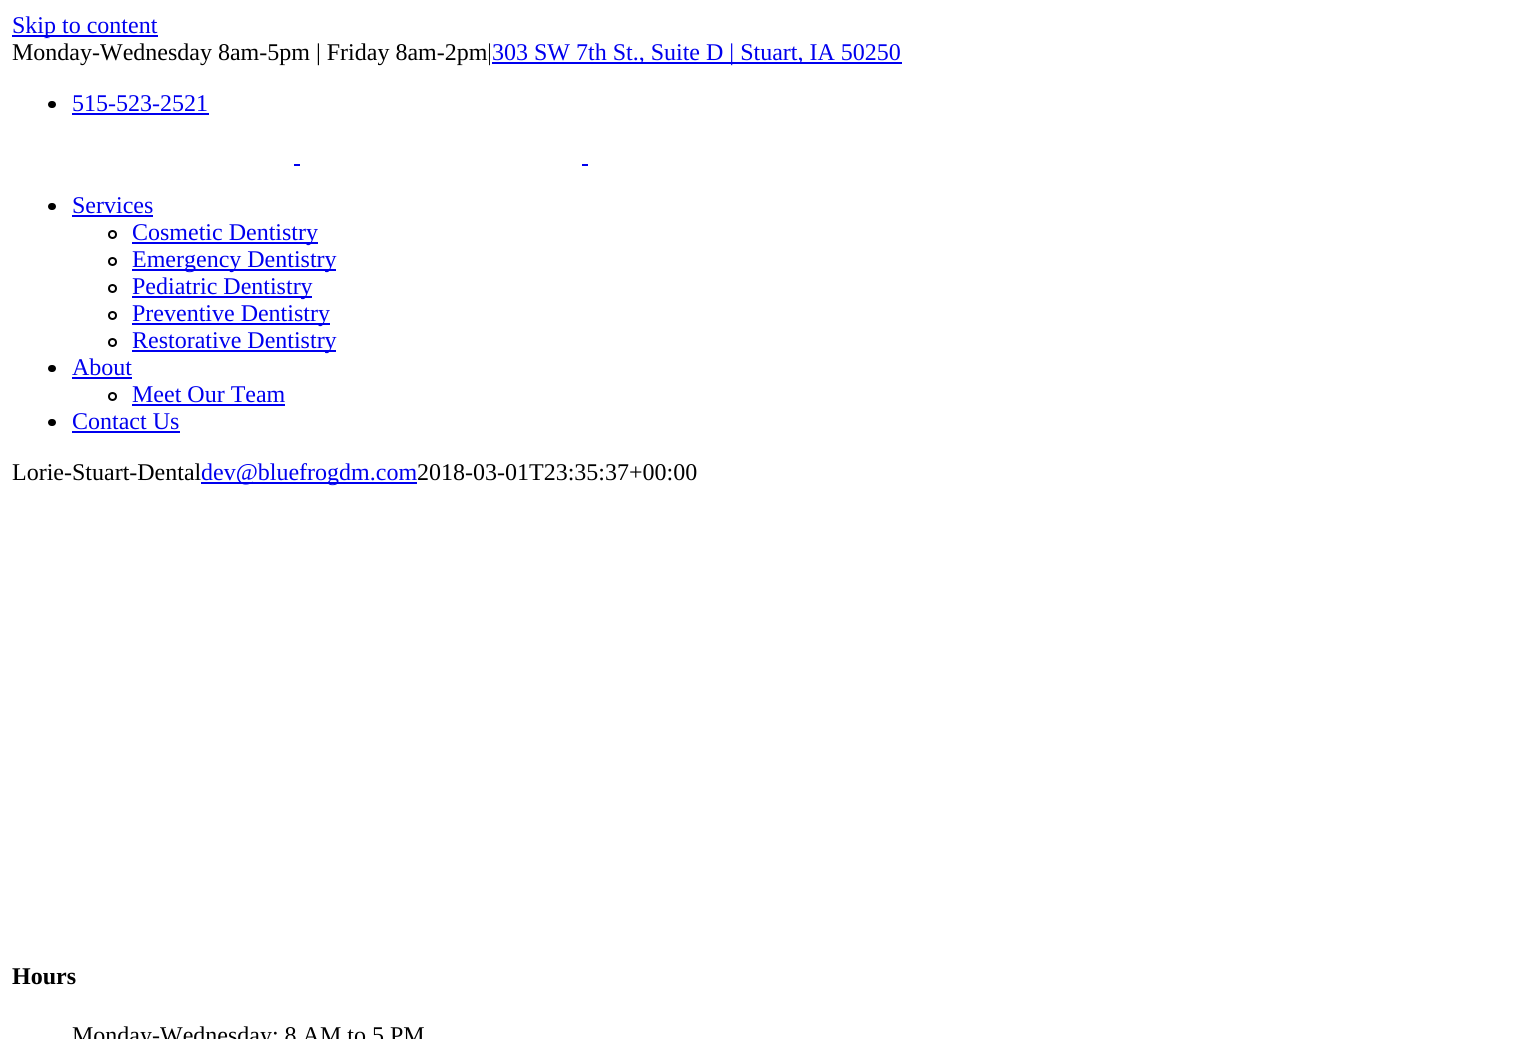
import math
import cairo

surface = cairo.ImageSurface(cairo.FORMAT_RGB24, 1520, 1039)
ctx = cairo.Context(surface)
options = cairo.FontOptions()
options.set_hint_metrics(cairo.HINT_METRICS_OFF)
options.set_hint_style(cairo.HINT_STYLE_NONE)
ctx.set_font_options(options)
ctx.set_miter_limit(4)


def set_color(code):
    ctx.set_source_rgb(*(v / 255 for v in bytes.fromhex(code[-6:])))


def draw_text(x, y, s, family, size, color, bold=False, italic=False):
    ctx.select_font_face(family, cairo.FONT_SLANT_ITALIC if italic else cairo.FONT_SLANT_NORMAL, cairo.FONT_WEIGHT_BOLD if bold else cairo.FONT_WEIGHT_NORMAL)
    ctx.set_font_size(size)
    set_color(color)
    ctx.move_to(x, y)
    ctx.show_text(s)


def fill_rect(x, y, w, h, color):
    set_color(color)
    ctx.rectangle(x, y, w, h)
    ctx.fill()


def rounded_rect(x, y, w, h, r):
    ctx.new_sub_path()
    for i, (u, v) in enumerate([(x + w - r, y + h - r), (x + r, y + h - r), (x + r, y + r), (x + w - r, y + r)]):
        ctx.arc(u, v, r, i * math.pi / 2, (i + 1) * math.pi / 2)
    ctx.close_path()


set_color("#ffffff")
ctx.paint()
fill_rect(12, 35, 146, 2, "#0000ee")
draw_text(12, 33, "Skip to content", "Liberation Serif", 24, "#0000ee")
draw_text(12, 60, "Monday-Wednesday 8am-5pm | Friday 8am-2pm|", "Liberation Serif", 24, "#000000")
fill_rect(492, 62, 410, 2, "#0000ee")
draw_text(492, 60, "303 SW 7th St., Suite D | Stuart, IA 50250", "Liberation Serif", 24, "#0000ee")
set_color("#000000")
rounded_rect(48, 101, 8, 7, 3.5)
ctx.fill()
draw_text(72, 111, "515-523-2521", "Liberation Serif", 24, "#0000ee")
fill_rect(72, 113, 137, 2, "#0000ee")
fill_rect(294, 164, 6, 2, "#0000ee")
fill_rect(582, 164, 6, 2, "#0000ee")
set_color("#000000")
rounded_rect(48, 203, 8, 7, 3.5)
ctx.fill()
draw_text(72, 213, "Services", "Liberation Serif", 24, "#0000ee")
fill_rect(72, 215, 81, 2, "#0000ee")
ctx.new_path()
ctx.arc(112.5, 234.5, 3.5, 0, 2 * math.pi)
set_color("#000000")
ctx.stroke()
fill_rect(132, 242, 186, 2, "#0000ee")
draw_text(132, 240, "Cosmetic Dentistry", "Liberation Serif", 24, "#0000ee")
ctx.new_path()
ctx.arc(112.5, 261.5, 3.5, 0, 2 * math.pi)
set_color("#000000")
ctx.stroke()
fill_rect(132, 269, 204, 2, "#0000ee")
draw_text(132, 267, "Emergency Dentistry", "Liberation Serif", 24, "#0000ee")
ctx.new_path()
ctx.arc(112.5, 288.5, 3.5, 0, 2 * math.pi)
set_color("#000000")
ctx.stroke()
fill_rect(132, 296, 180, 2, "#0000ee")
draw_text(132, 294, "Pediatric Dentistry", "Liberation Serif", 24, "#0000ee")
ctx.new_path()
ctx.arc(112.5, 315.5, 3.5, 0, 2 * math.pi)
set_color("#000000")
ctx.stroke()
fill_rect(132, 323, 198, 2, "#0000ee")
draw_text(132, 321, "Preventive Dentistry", "Liberation Serif", 24, "#0000ee")
ctx.new_path()
ctx.arc(112.5, 342.5, 3.5, 0, 2 * math.pi)
set_color("#000000")
ctx.stroke()
fill_rect(132, 350, 204, 2, "#0000ee")
draw_text(132, 348, "Restorative Dentistry", "Liberation Serif", 24, "#0000ee")
set_color("#000000")
rounded_rect(48, 365, 8, 7, 3.5)
ctx.fill()
draw_text(72, 375, "About", "Liberation Serif", 24, "#0000ee")
fill_rect(72, 377, 60, 2, "#0000ee")
ctx.new_path()
ctx.arc(112.5, 396.5, 3.5, 0, 2 * math.pi)
set_color("#000000")
ctx.stroke()
draw_text(132, 402, "Meet Our Team", "Liberation Serif", 24, "#0000ee")
fill_rect(132, 404, 153, 2, "#0000ee")
set_color("#000000")
rounded_rect(48, 419, 8, 7, 3.5)
ctx.fill()
draw_text(72, 429, "Contact Us", "Liberation Serif", 24, "#0000ee")
fill_rect(72, 431, 108, 2, "#0000ee")
draw_text(12, 480, "Lorie-Stuart-Dental", "Liberation Serif", 24, "#000000")
fill_rect(201, 482, 216, 2, "#0000ee")
draw_text(201, 480, "dev@bluefrogdm.com", "Liberation Serif", 24, "#0000ee")
draw_text(417, 480, "2018-03-01T23:35:37+00:00", "Liberation Serif", 24, "#000000")
draw_text(12, 984, "Hours", "Liberation Serif", 24, "#000000", bold=True)
draw_text(72, 1043, "Monday-Wednesday: 8 AM to 5 PM", "Liberation Serif", 24, "#000000")
surface.write_to_png("output.png")
